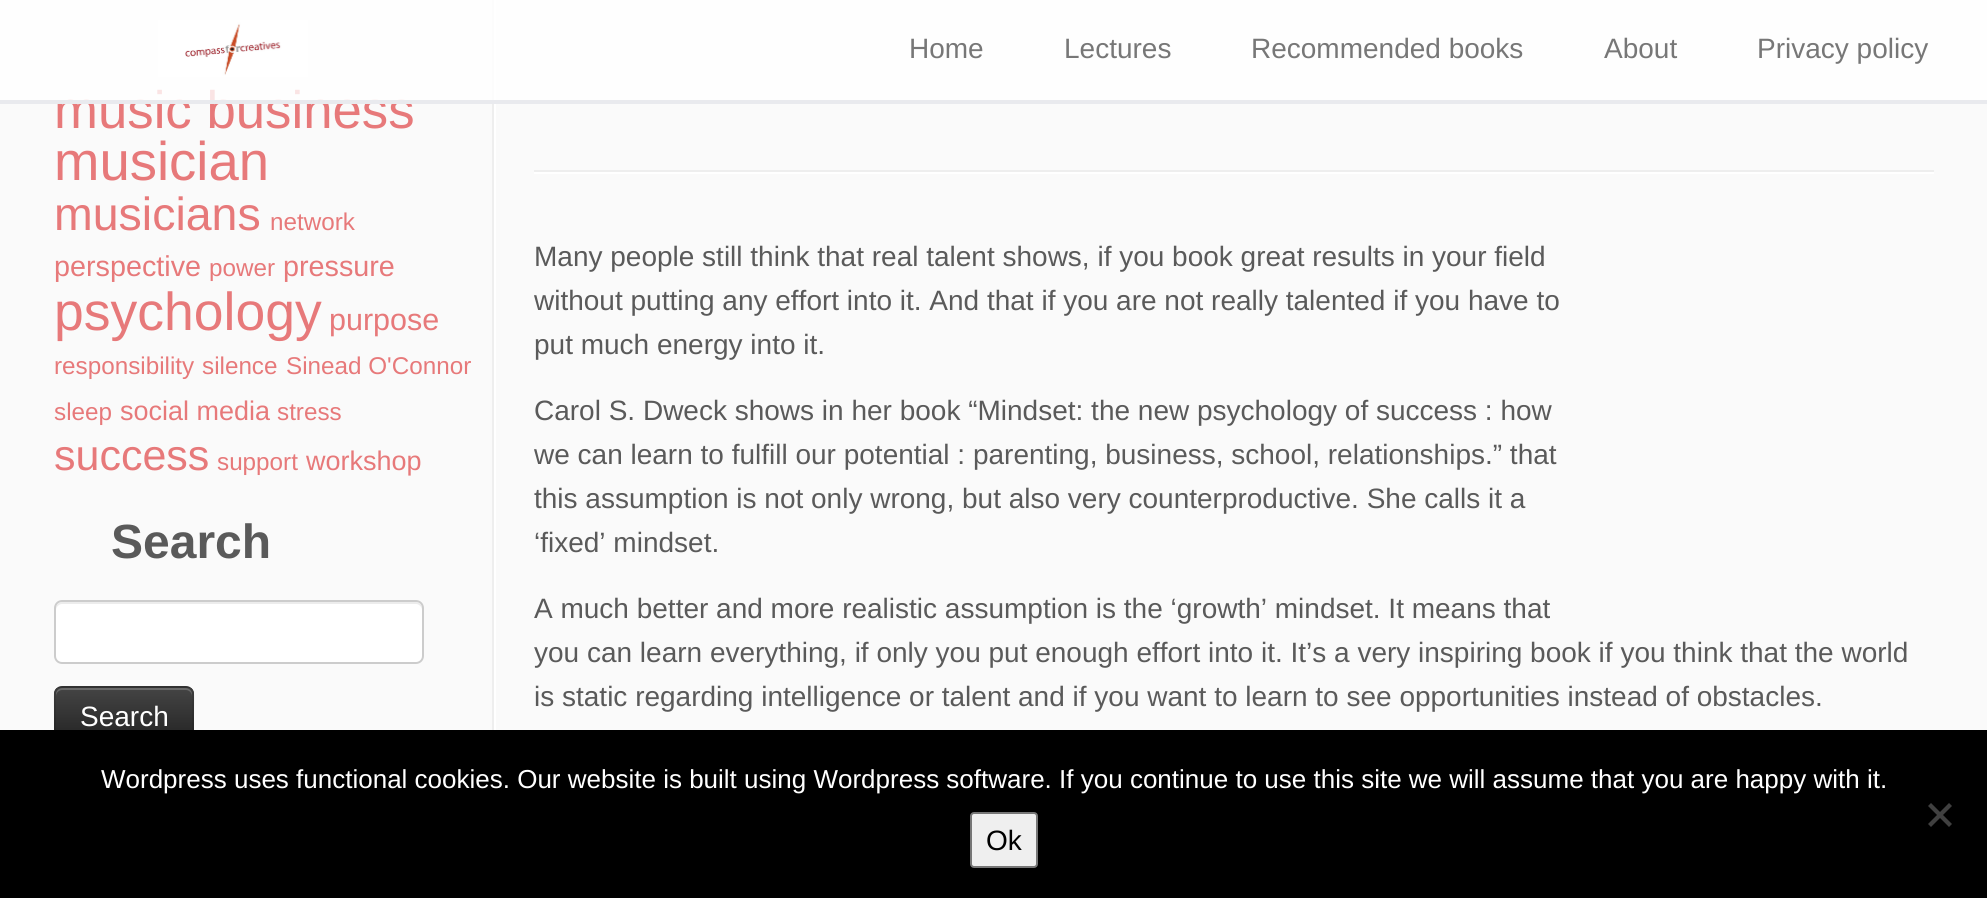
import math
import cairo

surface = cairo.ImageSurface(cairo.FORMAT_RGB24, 1987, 898)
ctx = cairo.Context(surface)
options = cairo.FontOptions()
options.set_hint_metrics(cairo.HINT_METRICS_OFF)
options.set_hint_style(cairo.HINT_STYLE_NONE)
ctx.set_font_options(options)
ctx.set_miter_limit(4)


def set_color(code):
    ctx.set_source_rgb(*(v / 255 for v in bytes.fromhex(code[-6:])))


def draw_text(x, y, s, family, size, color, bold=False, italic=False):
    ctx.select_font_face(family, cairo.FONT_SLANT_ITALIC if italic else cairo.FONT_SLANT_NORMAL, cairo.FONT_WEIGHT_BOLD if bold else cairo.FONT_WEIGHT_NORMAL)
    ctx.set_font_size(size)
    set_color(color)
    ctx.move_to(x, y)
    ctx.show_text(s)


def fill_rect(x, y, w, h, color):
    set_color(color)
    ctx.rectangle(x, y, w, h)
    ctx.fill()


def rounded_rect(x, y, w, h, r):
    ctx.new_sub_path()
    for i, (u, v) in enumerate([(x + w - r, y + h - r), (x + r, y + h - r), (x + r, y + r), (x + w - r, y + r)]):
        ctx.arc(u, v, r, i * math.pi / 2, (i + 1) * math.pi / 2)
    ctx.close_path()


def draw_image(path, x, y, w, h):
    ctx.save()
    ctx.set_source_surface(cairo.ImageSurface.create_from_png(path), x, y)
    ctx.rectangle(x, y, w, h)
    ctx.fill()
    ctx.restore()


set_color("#fafafa")
ctx.paint()
fill_rect(492, 0, 2, 730, "#eeeeee")
draw_text(54, 128, "music business", "Liberation Sans", 52.75, "#e7797a")
fill_rect(494, 0, 2, 730, "#ffffff")
ctx.set_source_rgba(1, 1, 1, 0.8)
ctx.rectangle(0, 0, 1987, 100)
ctx.fill()
fill_rect(0, 100, 1987, 4, "#e9eaee")
draw_image("assets/img1.png", 158, 20, 150, 57)
draw_text(909, 58, "Home", "Liberation Sans", 28, "#777777")
draw_text(1064, 58, "Lectures", "Liberation Sans", 28, "#777777")
draw_text(1251, 58, "Recommended books", "Liberation Sans", 28, "#777777")
draw_text(1604, 58, "About", "Liberation Sans", 28, "#777777")
draw_text(1757, 58, "Privacy policy", "Liberation Sans", 28, "#777777")
draw_text(54, 180, "musician", "Liberation Sans", 54.5, "#e7797a")
draw_text(54, 230, "musicians", "Liberation Sans", 46.5, "#e7797a")
draw_text(270, 230, "network", "Liberation Sans", 24.25, "#e7797a")
draw_text(54, 276, "perspective", "Liberation Sans", 28.75, "#e7797a")
draw_text(209, 276, "power", "Liberation Sans", 24.25, "#e7797a")
draw_text(283, 276, "pressure", "Liberation Sans", 28.75, "#e7797a")
draw_text(54, 330, "psychology", "Liberation Sans", 53.5, "#e7797a")
draw_text(329, 330, "purpose", "Liberation Sans", 30.5, "#e7797a")
draw_text(54, 374, "responsibility", "Liberation Sans", 24.25, "#e7797a")
draw_text(202, 374, "silence", "Liberation Sans", 24.25, "#e7797a")
draw_text(286, 374, "Sinead O'Connor", "Liberation Sans", 24.25, "#e7797a")
draw_text(54, 420, "sleep", "Liberation Sans", 24.25, "#e7797a")
draw_text(120, 420, "social media", "Liberation Sans", 27, "#e7797a")
draw_text(277, 420, "stress", "Liberation Sans", 24.25, "#e7797a")
draw_text(54, 470, "success", "Liberation Sans", 43, "#e7797a")
draw_text(217, 470, "support", "Liberation Sans", 24.25, "#e7797a")
draw_text(306, 470, "workshop", "Liberation Sans", 27, "#e7797a")
draw_text(111, 558, "Search", "Liberation Sans", 48, "#5a5a5a", bold=True)
set_color("#ffffff")
rounded_rect(54, 600, 370, 64, 8)
ctx.fill()
set_color("#ececec")
ctx.new_path()
ctx.move_to(62, 604)
ctx.line_to(416, 604)
ctx.curve_to(419, 604, 422, 607, 422, 610)
ctx.line_to(422, 608)
ctx.curve_to(422, 605, 419, 602, 416, 602)
ctx.line_to(62, 602)
ctx.curve_to(59, 602, 56, 605, 56, 608)
ctx.line_to(56, 610)
ctx.curve_to(56, 607, 59, 604, 62, 604)
ctx.close_path()
ctx.fill()
rounded_rect(55, 601, 368, 62, 7)
set_color("#cccccc")
ctx.stroke()
set_color("#363636")
rounded_rect(54, 686, 140, 60, 8)
ctx.fill()
ctx.save()
rounded_rect(54, 686, 140, 60, 8)
ctx.clip()
gradient = cairo.LinearGradient(124, 688, 124, 744)
gradient.add_color_stop_rgba(0, 0.267, 0.267, 0.267, 1)
gradient.add_color_stop_rgba(1, 0.133, 0.133, 0.133, 1)
ctx.set_source(gradient)
ctx.rectangle(54, 688, 140, 42)
ctx.fill()
ctx.restore()
ctx.set_source_rgba(1, 1, 1, 0.2)
ctx.new_path()
ctx.move_to(62, 690)
ctx.line_to(186, 690)
ctx.curve_to(189, 690, 192, 693, 192, 696)
ctx.line_to(192, 694)
ctx.curve_to(192, 691, 189, 688, 186, 688)
ctx.line_to(62, 688)
ctx.curve_to(59, 688, 56, 691, 56, 694)
ctx.line_to(56, 696)
ctx.curve_to(56, 693, 59, 690, 62, 690)
ctx.close_path()
ctx.fill()
ctx.new_path()
ctx.move_to(57, 743)
ctx.curve_to(54, 740, 55, 734.5, 55, 730.5)
ctx.line_to(55, 716)
ctx.curve_to(55, 684, 50, 687, 82.5, 687)
ctx.line_to(165.5, 687)
ctx.curve_to(198, 687, 193, 684, 193, 716)
ctx.line_to(193, 730.5)
ctx.curve_to(193, 734.5, 194, 740, 191, 743)
ctx.set_source_rgba(0, 0, 0, 0.1)
ctx.stroke()
draw_text(80, 726, "Search", "Liberation Sans", 28, "#ffffff")
fill_rect(534, 170, 1400, 2, "#eeeeee")
fill_rect(534, 172, 1400, 2, "#ffffff")
draw_text(534, 266, "Many people still think that real talent shows, if you book great results in your field", "Liberation Sans", 28, "#5a5a5a")
draw_text(534, 310, "without putting any effort into it. And that if you are not really talented if you have to", "Liberation Sans", 28, "#5a5a5a")
draw_text(534, 354, "put much energy into it.", "Liberation Sans", 28, "#5a5a5a")
draw_text(534, 420, "Carol S. Dweck shows in her book “Mindset: the new psychology of success : how", "Liberation Sans", 28, "#5a5a5a")
draw_text(534, 464, "we can learn to fulfill our potential : parenting, business, school, relationships.” that", "Liberation Sans", 28, "#5a5a5a")
draw_text(534, 508, "this assumption is not only wrong, but also very counterproductive. She calls it a", "Liberation Sans", 28, "#5a5a5a")
draw_text(534, 552, "‘fixed’ mindset.", "Liberation Sans", 28, "#5a5a5a")
draw_text(534, 618, "A much better and more realistic assumption is the ‘growth’ mindset. It means that", "Liberation Sans", 28, "#5a5a5a")
draw_text(534, 662, "you can learn everything, if only you put enough effort into it. It’s a very inspiring book if you think that the world", "Liberation Sans", 28, "#5a5a5a")
draw_text(534, 706, "is static regarding intelligence or talent and if you want to learn to see opportunities instead of obstacles.", "Liberation Sans", 28, "#5a5a5a")
fill_rect(0, 730, 1987, 168, "#000000")
draw_text(101, 788, "Wordpress uses functional cookies. Our website is built using Wordpress software. If you continue to use this site we will assume that you are happy with it.", "Liberation Sans", 26, "#ffffff")
set_color("#404040")
ctx.new_path()
ctx.move_to(1949, 803)
ctx.line_to(1952, 806)
ctx.line_to(1931, 827)
ctx.line_to(1928, 824)
ctx.close_path()
ctx.fill()
ctx.new_path()
ctx.move_to(1928, 806)
ctx.line_to(1931, 803)
ctx.line_to(1952, 824)
ctx.line_to(1949, 827)
ctx.close_path()
ctx.fill()
set_color("#efefef")
rounded_rect(971, 813, 66, 54, 3)
ctx.fill_preserve()
set_color("#767676")
ctx.stroke()
draw_text(986, 850, "Ok", "Liberation Sans", 28, "#000000")
surface.write_to_png("output.png")
